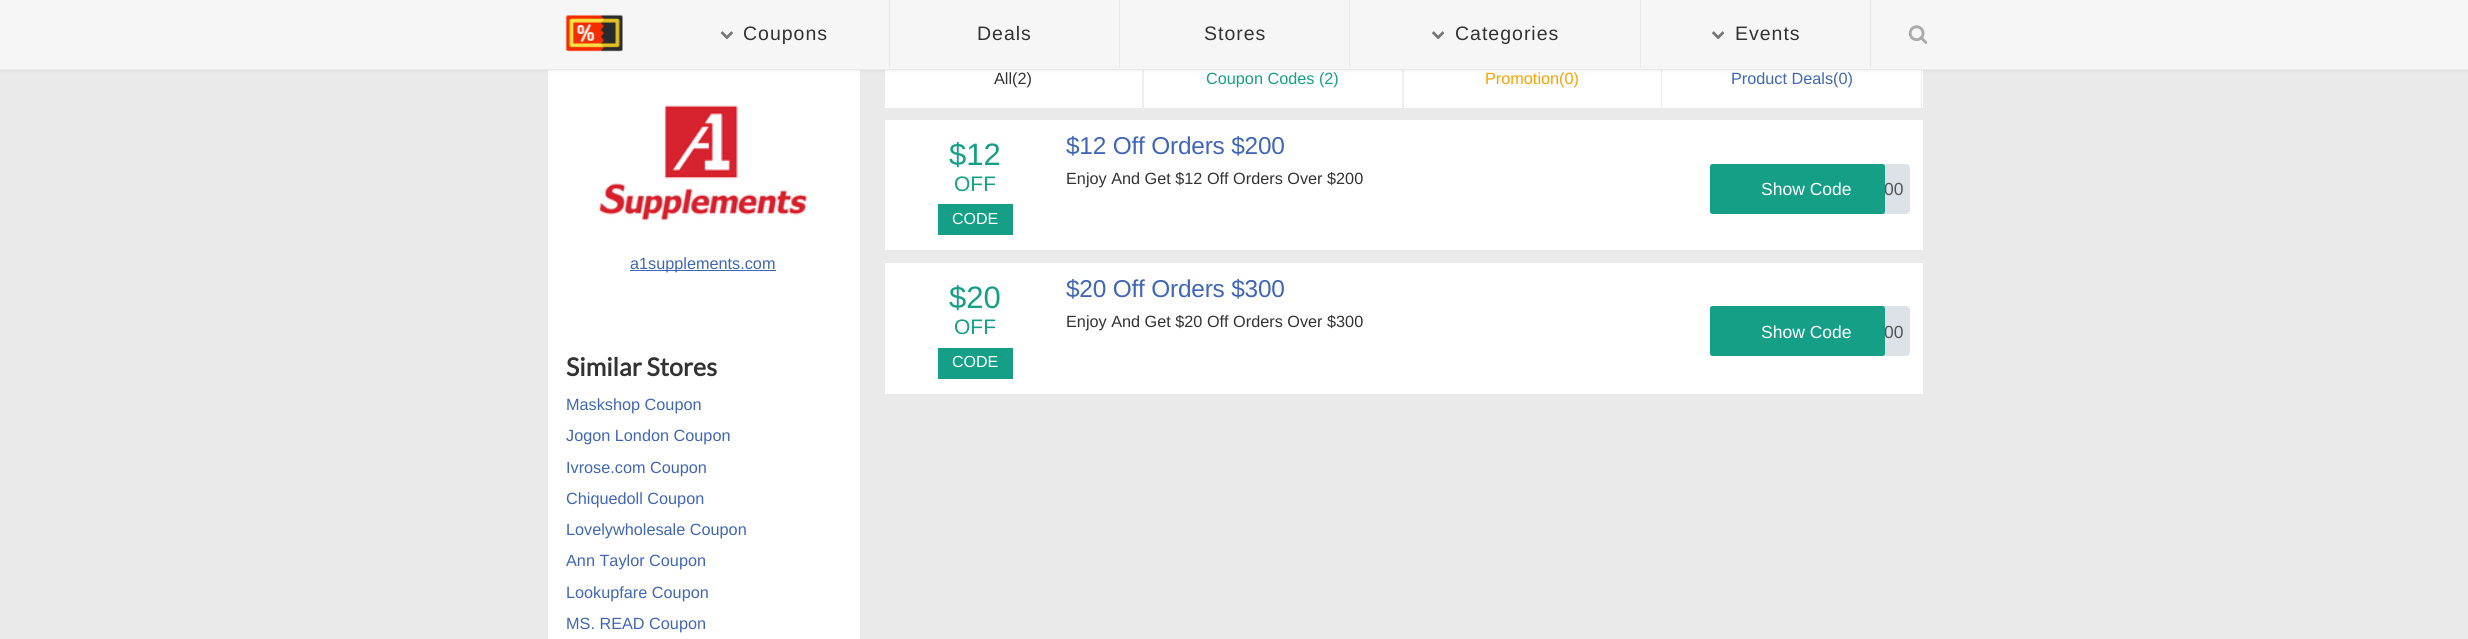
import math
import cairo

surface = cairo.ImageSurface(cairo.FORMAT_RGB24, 2468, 639)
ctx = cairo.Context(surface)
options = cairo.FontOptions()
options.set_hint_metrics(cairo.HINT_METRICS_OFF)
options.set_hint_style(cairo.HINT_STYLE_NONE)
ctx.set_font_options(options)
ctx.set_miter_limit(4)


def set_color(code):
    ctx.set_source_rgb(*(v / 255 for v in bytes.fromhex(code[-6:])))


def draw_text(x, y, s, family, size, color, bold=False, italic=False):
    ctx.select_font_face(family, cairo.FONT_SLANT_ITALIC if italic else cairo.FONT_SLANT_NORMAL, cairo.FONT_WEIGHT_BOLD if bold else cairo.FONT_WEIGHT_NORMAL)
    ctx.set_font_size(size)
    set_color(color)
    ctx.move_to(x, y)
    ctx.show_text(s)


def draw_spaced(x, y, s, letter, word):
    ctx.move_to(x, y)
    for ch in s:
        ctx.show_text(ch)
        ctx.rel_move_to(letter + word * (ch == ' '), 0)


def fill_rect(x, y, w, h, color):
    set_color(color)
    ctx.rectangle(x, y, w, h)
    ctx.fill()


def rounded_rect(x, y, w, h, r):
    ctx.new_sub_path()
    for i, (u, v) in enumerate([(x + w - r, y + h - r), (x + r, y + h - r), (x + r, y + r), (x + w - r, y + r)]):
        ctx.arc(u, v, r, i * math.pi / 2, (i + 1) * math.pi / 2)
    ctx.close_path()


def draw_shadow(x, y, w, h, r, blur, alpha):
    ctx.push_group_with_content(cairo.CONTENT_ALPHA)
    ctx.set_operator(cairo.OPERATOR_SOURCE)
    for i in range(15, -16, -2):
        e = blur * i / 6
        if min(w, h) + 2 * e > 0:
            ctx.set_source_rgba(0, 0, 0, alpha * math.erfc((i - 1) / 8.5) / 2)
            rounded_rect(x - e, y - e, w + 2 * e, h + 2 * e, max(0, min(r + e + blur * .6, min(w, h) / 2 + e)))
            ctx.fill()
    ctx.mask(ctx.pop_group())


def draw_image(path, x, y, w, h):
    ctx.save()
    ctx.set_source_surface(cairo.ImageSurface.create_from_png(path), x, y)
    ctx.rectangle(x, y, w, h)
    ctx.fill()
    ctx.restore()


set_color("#eaeaea")
ctx.paint()
fill_rect(885, 70, 257, 38, "#ffffff")
set_color("#eeeeee")
ctx.new_path()
ctx.move_to(1144, 45)
ctx.line_to(1144, 108)
ctx.line_to(1142, 108)
ctx.line_to(1142, 48)
ctx.close_path()
ctx.fill()
fill_rect(1144, 70, 258, 38, "#ffffff")
set_color("#eeeeee")
ctx.new_path()
ctx.move_to(1404, 45)
ctx.line_to(1404, 108)
ctx.line_to(1402, 108)
ctx.line_to(1402, 48)
ctx.close_path()
ctx.fill()
fill_rect(1404, 70, 519, 38, "#ffffff")
set_color("#eeeeee")
ctx.new_path()
ctx.move_to(1662, 45)
ctx.line_to(1662, 108)
ctx.line_to(1661, 108)
ctx.line_to(1661, 48)
ctx.close_path()
ctx.fill()
ctx.new_path()
ctx.move_to(1922, 45)
ctx.line_to(1922, 108)
ctx.line_to(1921, 108)
ctx.line_to(1921, 48)
ctx.close_path()
ctx.fill()
fill_rect(548, 70, 312, 569, "#ffffff")
set_color("#000000")
draw_shadow(0, 0, 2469, 70, 0, 2, 0.1)
fill_rect(0, 0, 2468, 69, "#f6f6f6")
fill_rect(0, 69, 2468, 1, "#eaeaea")
draw_image("assets/img1.png", 565, 14, 58, 38)
fill_rect(889, 0, 1, 68, "#eaeaea")
draw_image("assets/img2.png", 720, 31, 13, 9)
ctx.select_font_face("Liberation Sans")
ctx.set_font_size(19.5)
set_color("#333333")
draw_spaced(743, 40, "Coupons", 1, 0)
fill_rect(1119, 0, 1, 68, "#eaeaea")
set_color("#333333")
draw_spaced(977, 40, "Deals", 1, 0)
fill_rect(1349, 0, 1, 68, "#eaeaea")
set_color("#333333")
draw_spaced(1204, 40, "Stores", 1, 0)
fill_rect(1640, 0, 1, 68, "#eaeaea")
draw_image("assets/img3.png", 1432, 31, 13, 9)
set_color("#333333")
draw_spaced(1455, 40, "Categories", 1, 0)
fill_rect(1870, 0, 1, 68, "#eaeaea")
draw_image("assets/img3.png", 1712, 31, 13, 9)
set_color("#333333")
draw_spaced(1735, 40, "Events", 1, 0)
draw_image("assets/img4.png", 1908, 25, 20, 19)
draw_text(994, 84, "All(2)", "Liberation Sans", 16.25, "#333333")
draw_text(1206, 84, "Coupon Codes (2)", "Liberation Sans", 16.25, "#159f86")
draw_text(1485, 84, "Promotion(0)", "Liberation Sans", 16.25, "#fba100")
draw_text(1731, 84, "Product Deals(0)", "Liberation Sans", 16.25, "#4066b8")
fill_rect(885, 120, 1038, 130, "#ffffff")
draw_text(949, 165, "$12", "Liberation Sans", 31, "#159f86")
draw_text(954, 191, "OFF", "Liberation Sans", 21, "#159f86")
fill_rect(938, 204, 75, 31, "#159f86")
draw_text(952, 224, "CODE", "Liberation Sans", 16, "#ffffff")
ctx.set_font_size(24.4)
set_color("#4066b8")
draw_spaced(1066, 154, "$12 Off Orders $200", -0.2, 0)
draw_text(1066, 184, "Enjoy And Get $12 Off Orders Over $200", "Liberation Sans", 16.25, "#333333")
set_color("#dce2e8")
rounded_rect(1723, 164, 187, 50, 4)
ctx.fill()
draw_text(1884, 195, "00", "Liberation Sans", 17.5, "#555555")
set_color("#159f86")
rounded_rect(1710, 164, 175, 50, 2.5)
ctx.fill()
draw_text(1761, 195, "Show Code", "Liberation Sans", 17.5, "#ffffff")
fill_rect(885, 263, 1038, 131, "#ffffff")
draw_text(949, 308, "$20", "Liberation Sans", 31, "#159f86")
draw_text(954, 334, "OFF", "Liberation Sans", 21, "#159f86")
fill_rect(938, 348, 75, 31, "#159f86")
draw_text(952, 367, "CODE", "Liberation Sans", 16, "#ffffff")
ctx.set_font_size(24.4)
set_color("#4066b8")
draw_spaced(1066, 297, "$20 Off Orders $300", -0.2, 0)
draw_text(1066, 327, "Enjoy And Get $20 Off Orders Over $300", "Liberation Sans", 16.25, "#333333")
set_color("#dce2e8")
rounded_rect(1723, 306, 187, 50, 4)
ctx.fill()
draw_text(1884, 338, "00", "Liberation Sans", 17.5, "#555555")
set_color("#159f86")
rounded_rect(1710, 306, 175, 50, 2.5)
ctx.fill()
draw_text(1761, 338, "Show Code", "Liberation Sans", 17.5, "#ffffff")
draw_image("assets/img5.png", 598, 105, 210, 116)
fill_rect(630, 270, 146, 1, "#4066b8")
draw_text(630, 269, "a1supplements.com", "Liberation Sans", 16.25, "#4066b8")
draw_text(566, 376, "Similar Stores", "Lato", 25, "#333333", bold=True)
draw_text(566, 410, "Maskshop Coupon", "Liberation Sans", 16.25, "#4066b8")
draw_text(566, 441, "Jogon London Coupon", "Liberation Sans", 16.25, "#4066b8")
draw_text(566, 473, "Ivrose.com Coupon", "Liberation Sans", 16.25, "#4066b8")
draw_text(566, 504, "Chiquedoll Coupon", "Liberation Sans", 16.25, "#4066b8")
draw_text(566, 535, "Lovelywholesale Coupon", "Liberation Sans", 16.25, "#4066b8")
draw_text(566, 566, "Ann Taylor Coupon", "Liberation Sans", 16.25, "#4066b8")
draw_text(566, 598, "Lookupfare Coupon", "Liberation Sans", 16.25, "#4066b8")
draw_text(566, 629, "MS. READ Coupon", "Liberation Sans", 16.25, "#4066b8")
surface.write_to_png("output.png")
